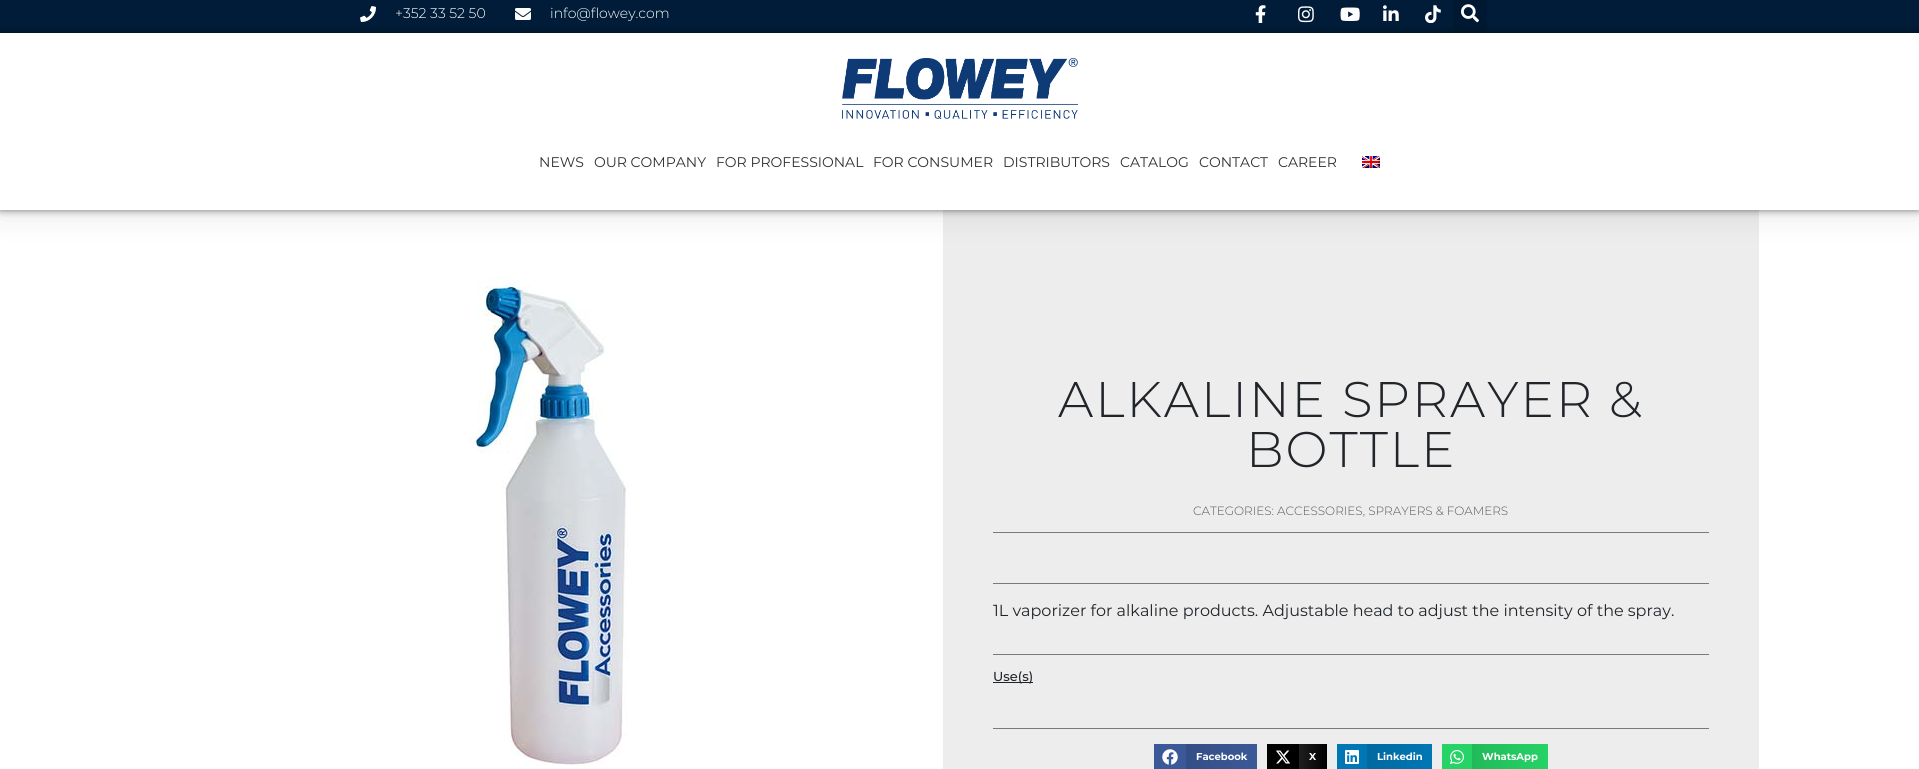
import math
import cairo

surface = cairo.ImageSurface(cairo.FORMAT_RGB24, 1919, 769)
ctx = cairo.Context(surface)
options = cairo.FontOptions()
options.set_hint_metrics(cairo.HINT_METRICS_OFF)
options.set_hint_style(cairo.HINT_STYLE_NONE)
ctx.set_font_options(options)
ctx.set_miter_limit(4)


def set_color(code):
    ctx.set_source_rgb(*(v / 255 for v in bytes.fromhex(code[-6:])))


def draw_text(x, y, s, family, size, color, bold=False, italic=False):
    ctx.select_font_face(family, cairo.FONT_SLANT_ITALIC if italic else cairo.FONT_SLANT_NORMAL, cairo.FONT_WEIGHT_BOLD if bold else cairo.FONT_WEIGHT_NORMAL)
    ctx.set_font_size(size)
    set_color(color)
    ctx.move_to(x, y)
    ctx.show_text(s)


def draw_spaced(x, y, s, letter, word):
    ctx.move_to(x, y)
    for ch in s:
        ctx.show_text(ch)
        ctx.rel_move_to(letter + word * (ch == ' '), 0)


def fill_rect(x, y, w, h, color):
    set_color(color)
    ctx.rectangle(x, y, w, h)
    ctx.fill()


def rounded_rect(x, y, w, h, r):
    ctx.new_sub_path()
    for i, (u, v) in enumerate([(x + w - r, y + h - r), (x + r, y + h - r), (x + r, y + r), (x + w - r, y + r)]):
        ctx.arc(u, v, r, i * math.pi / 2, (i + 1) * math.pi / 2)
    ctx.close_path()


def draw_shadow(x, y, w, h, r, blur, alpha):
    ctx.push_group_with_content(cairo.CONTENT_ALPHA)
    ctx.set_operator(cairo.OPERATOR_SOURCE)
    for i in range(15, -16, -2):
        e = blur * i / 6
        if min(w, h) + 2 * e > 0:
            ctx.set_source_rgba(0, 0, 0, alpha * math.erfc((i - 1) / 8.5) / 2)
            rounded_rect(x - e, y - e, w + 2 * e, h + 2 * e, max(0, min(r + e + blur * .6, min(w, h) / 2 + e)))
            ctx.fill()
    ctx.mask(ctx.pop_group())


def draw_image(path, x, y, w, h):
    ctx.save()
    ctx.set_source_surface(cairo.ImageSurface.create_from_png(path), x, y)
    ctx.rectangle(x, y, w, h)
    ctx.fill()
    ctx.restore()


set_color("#ffffff")
ctx.paint()
fill_rect(943, 210, 816, 559, "#ededed")
set_color("#000000")
draw_shadow(0, -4, 1919, 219, 0, 15, 0.1)
fill_rect(0, 0, 1919, 33, "#001c38")
draw_image("assets/img1.png", 360, 6, 16, 16)
draw_text(395, 18, "+352 33 52 50", "Montserrat Light", 14, "#ffffff")
draw_image("assets/img2.png", 515, 8, 16, 12)
draw_text(550, 18, "info@flowey.com", "Montserrat Light", 14, "#ffffff")
draw_image("assets/img3.png", 1255, 5, 11, 18)
draw_image("assets/img4.png", 1298, 6, 16, 17)
draw_image("assets/img5.png", 1340, 7, 20, 14)
draw_image("assets/img6.png", 1383, 5, 16, 16)
draw_image("assets/img7.png", 1425, 5, 16, 18)
fill_rect(1453, 0, 34, 31, "#001932")
draw_image("assets/img8.png", 1461, 4, 18, 19)
set_color("#000000")
draw_shadow(0, 33, 1919, 177, 0, 4, 0.5)
fill_rect(0, 33, 1919, 177, "#ffffff")
draw_image("assets/img9.png", 842, 58, 236, 61)
draw_text(539, 167, "NEWS", "Montserrat", 14, "#313131")
draw_text(594, 167, "OUR COMPANY", "Montserrat", 14, "#313131")
draw_text(716, 167, "FOR PROFESSIONAL", "Montserrat", 14, "#313131")
draw_text(873, 167, "FOR CONSUMER", "Montserrat", 14, "#313131")
draw_text(1003, 167, "DISTRIBUTORS", "Montserrat", 14, "#313131")
draw_text(1120, 167, "CATALOG", "Montserrat", 14, "#313131")
draw_text(1199, 167, "CONTACT", "Montserrat", 14, "#313131")
draw_text(1278, 167, "CAREER", "Montserrat", 14, "#313131")
draw_image("assets/img10.png", 1362, 156, 18, 12)
draw_image("assets/img11.png", 469, 277, 159, 488)
ctx.select_font_face("Montserrat Light")
ctx.set_font_size(50)
set_color("#212529")
draw_spaced(1058, 417, "ALKALINE SPRAYER &", 2, 0)
draw_spaced(1246, 467, "BOTTLE", 2, 0)
draw_text(1193, 515, "CATEGORIES: ACCESSORIES, SPRAYERS & FOAMERS", "Montserrat Light", 12, "#54595f")
fill_rect(993, 532, 716, 1, "#7a7a7a")
fill_rect(993, 583, 716, 1, "#7a7a7a")
draw_text(993, 616, "1L vaporizer for alkaline products. Adjustable head to adjust the intensity of the spray.", "Montserrat", 16, "#212529")
fill_rect(993, 654, 716, 1, "#7a7a7a")
fill_rect(993, 682, 40, 1, "#212529")
draw_text(993, 681, "Use(s)", "Montserrat Medium", 13, "#212529")
fill_rect(993, 728, 716, 1, "#7a7a7a")
fill_rect(1154, 744, 32, 25, "#3b5998")
draw_image("assets/img12.png", 1162, 749, 16, 16)
gradient = cairo.LinearGradient(1186, 757, 1257, 757)
gradient.add_color_stop_rgba(0, 0.204, 0.306, 0.525, 1)
gradient.add_color_stop_rgba(1, 0.231, 0.349, 0.596, 1)
ctx.set_source(gradient)
ctx.rectangle(1186, 744, 71, 25)
ctx.fill()
draw_text(1196, 760, "Facebook", "Montserrat", 10, "#ffffff", bold=True)
fill_rect(1267, 744, 32, 25, "#000000")
draw_image("assets/img13.png", 1276, 750, 15, 14)
gradient = cairo.LinearGradient(1299, 757, 1327, 757)
gradient.add_color_stop_rgba(0, 0.122, 0.122, 0.122, 1)
gradient.add_color_stop_rgba(1, 0, 0, 0, 1)
ctx.set_source(gradient)
ctx.rectangle(1299, 744, 28, 25)
ctx.fill()
draw_text(1309, 760, "X", "Montserrat", 10, "#ffffff", bold=True)
fill_rect(1337, 744, 30, 25, "#0077b5")
draw_image("assets/img14.png", 1345, 750, 14, 14)
gradient = cairo.LinearGradient(1367, 757, 1432, 757)
gradient.add_color_stop_rgba(0, 0, 0.412, 0.624, 1)
gradient.add_color_stop_rgba(1, 0, 0.467, 0.71, 1)
ctx.set_source(gradient)
ctx.rectangle(1367, 744, 65, 25)
ctx.fill()
draw_text(1377, 760, "Linkedin", "Montserrat", 10, "#ffffff", bold=True)
fill_rect(1442, 744, 30, 25, "#25d366")
draw_image("assets/img15.png", 1450, 750, 14, 14)
gradient = cairo.LinearGradient(1472, 757, 1548, 757)
gradient.add_color_stop_rgba(0, 0.129, 0.729, 0.353, 1)
gradient.add_color_stop_rgba(1, 0.145, 0.827, 0.4, 1)
ctx.set_source(gradient)
ctx.rectangle(1472, 744, 76, 25)
ctx.fill()
draw_text(1482, 760, "WhatsApp", "Montserrat", 10, "#ffffff", bold=True)
surface.write_to_png("output.png")
